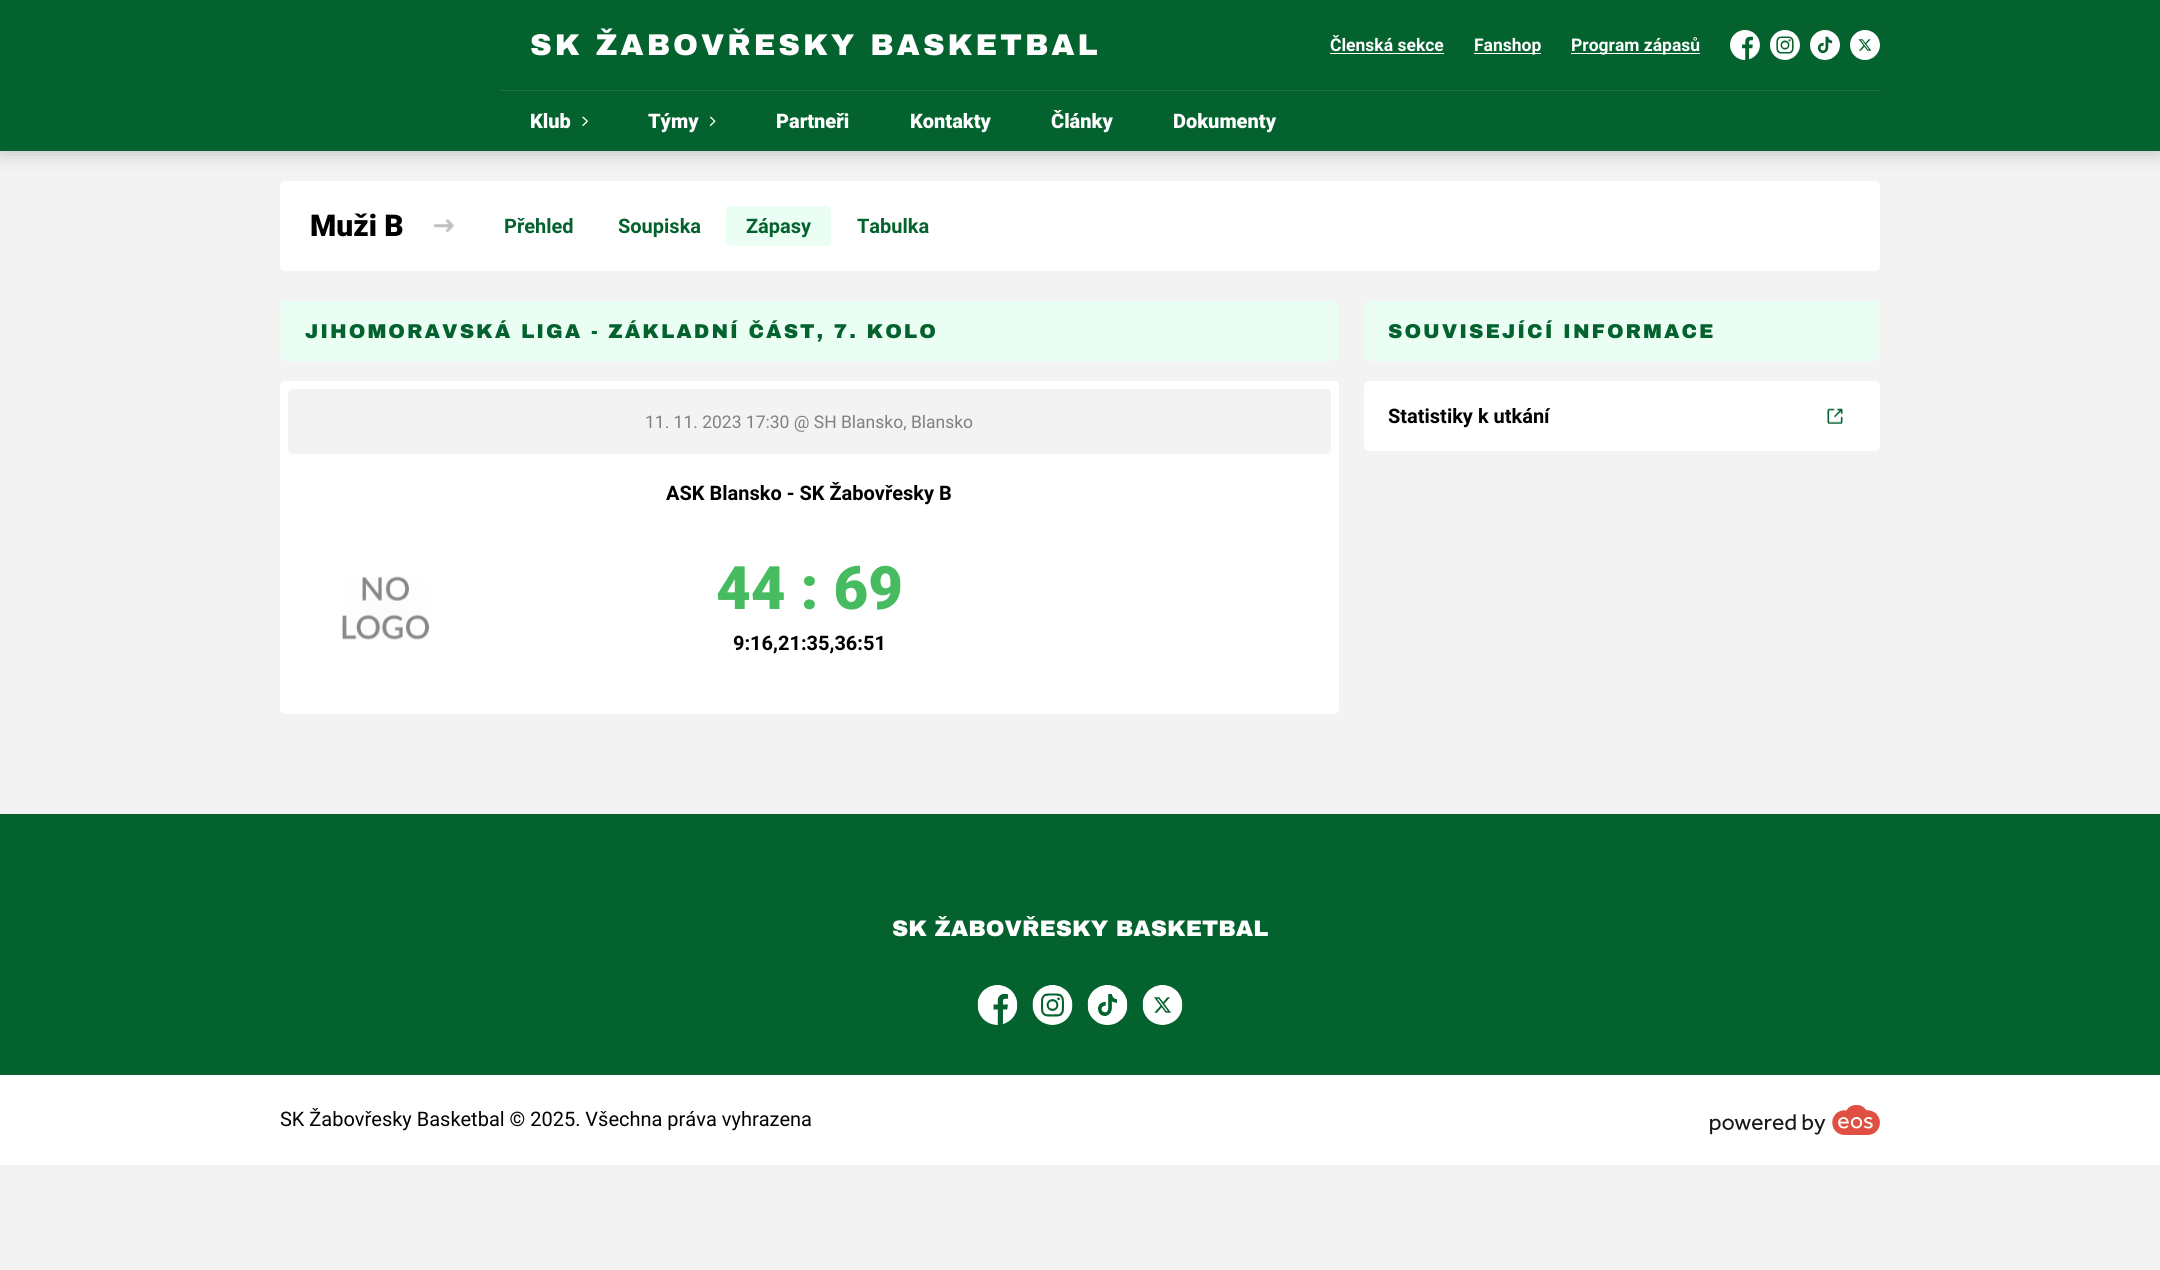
import math
import cairo

surface = cairo.ImageSurface(cairo.FORMAT_RGB24, 2160, 1270)
ctx = cairo.Context(surface)
options = cairo.FontOptions()
options.set_hint_metrics(cairo.HINT_METRICS_OFF)
options.set_hint_style(cairo.HINT_STYLE_NONE)
ctx.set_font_options(options)
ctx.set_miter_limit(4)


def set_color(code):
    ctx.set_source_rgb(*(v / 255 for v in bytes.fromhex(code[-6:])))


def draw_text(x, y, s, family, size, color, bold=False, italic=False):
    ctx.select_font_face(family, cairo.FONT_SLANT_ITALIC if italic else cairo.FONT_SLANT_NORMAL, cairo.FONT_WEIGHT_BOLD if bold else cairo.FONT_WEIGHT_NORMAL)
    ctx.set_font_size(size)
    set_color(color)
    ctx.move_to(x, y)
    ctx.show_text(s)


def draw_spaced(x, y, s, letter, word):
    ctx.move_to(x, y)
    for ch in s:
        ctx.show_text(ch)
        ctx.rel_move_to(letter + word * (ch == ' '), 0)


def fill_rect(x, y, w, h, color):
    set_color(color)
    ctx.rectangle(x, y, w, h)
    ctx.fill()


def rounded_rect(x, y, w, h, r):
    ctx.new_sub_path()
    for i, (u, v) in enumerate([(x + w - r, y + h - r), (x + r, y + h - r), (x + r, y + r), (x + w - r, y + r)]):
        ctx.arc(u, v, r, i * math.pi / 2, (i + 1) * math.pi / 2)
    ctx.close_path()


def draw_shadow(x, y, w, h, r, blur, alpha):
    ctx.push_group_with_content(cairo.CONTENT_ALPHA)
    ctx.set_operator(cairo.OPERATOR_SOURCE)
    for i in range(15, -16, -2):
        e = blur * i / 6
        if min(w, h) + 2 * e > 0:
            ctx.set_source_rgba(0, 0, 0, alpha * math.erfc((i - 1) / 8.5) / 2)
            rounded_rect(x - e, y - e, w + 2 * e, h + 2 * e, max(0, min(r + e + blur * .6, min(w, h) / 2 + e)))
            ctx.fill()
    ctx.mask(ctx.pop_group())


def draw_image(path, x, y, w, h):
    ctx.save()
    ctx.set_source_surface(cairo.ImageSurface.create_from_png(path), x, y)
    ctx.rectangle(x, y, w, h)
    ctx.fill()
    ctx.restore()


set_color("#f3f3f3")
ctx.paint()
set_color("#ffffff")
rounded_rect(280, 181, 1600, 90, 5)
ctx.fill()
set_color("#000000")
draw_shadow(0, 0, 2160, 151, 0, 10, 0.25)
fill_rect(0, 0, 2160, 151, "#04622e")
ctx.select_font_face("Archivo Black Black")
ctx.set_font_size(30)
set_color("#ffffff")
draw_spaced(530, 55, "SK ŽABOVŘESKY BASKETBAL", 3, 0)
draw_text(1330, 51, "Členská sekce", "Roboto", 17.5, "#ffffff", bold=True)
fill_rect(1330, 53, 114, 1, "#ffffff")
fill_rect(1474, 53, 67, 1, "#ffffff")
draw_text(1474, 51, "Fanshop", "Roboto", 17.5, "#ffffff", bold=True)
fill_rect(1571, 53, 129, 1, "#ffffff")
draw_text(1571, 51, "Program zápasů", "Roboto", 17.5, "#ffffff", bold=True)
draw_image("assets/img1.png", 1730, 30, 30, 30)
draw_image("assets/img2.png", 1770, 30, 30, 30)
draw_image("assets/img3.png", 1810, 30, 30, 30)
draw_image("assets/img4.png", 1850, 30, 30, 30)
fill_rect(500, 90, 1380, 1, "#1d7243")
draw_text(530, 128, "Klub", "Roboto Black", 20, "#ffffff")
draw_image("assets/img5.png", 582, 116, 6, 10)
draw_text(648, 128, "Týmy", "Roboto Black", 20, "#ffffff")
draw_image("assets/img6.png", 709, 116, 7, 10)
draw_text(776, 128, "Partneři", "Roboto Black", 20, "#ffffff")
draw_text(910, 128, "Kontakty", "Roboto Black", 20, "#ffffff")
draw_text(1051, 128, "Články", "Roboto Black", 20, "#ffffff")
draw_text(1173, 128, "Dokumenty", "Roboto Black", 20, "#ffffff")
draw_text(310, 236, "Muži B", "Roboto Black", 30, "#000000")
draw_image("assets/img7.png", 433, 219, 21, 14)
draw_text(504, 233, "Přehled", "Roboto", 20, "#04622e", bold=True)
draw_text(618, 233, "Soupiska", "Roboto", 20, "#04622e", bold=True)
set_color("#ebfef4")
rounded_rect(726, 206, 105, 40, 5)
ctx.fill()
draw_text(746, 233, "Zápasy", "Roboto", 20, "#04622e", bold=True)
draw_text(857, 233, "Tabulka", "Roboto", 20, "#04622e", bold=True)
set_color("#ebfef4")
rounded_rect(280, 301, 1059, 60, 5)
ctx.fill()
ctx.select_font_face("Archivo Black Black")
set_color("#04622e")
draw_spaced(305, 338, "JIHOMORAVSKÁ LIGA - ZÁKLADNÍ ČÁST, 7. KOLO", 2, 0)
set_color("#ffffff")
rounded_rect(280, 381, 1059, 333, 5)
ctx.fill()
set_color("#f3f3f3")
rounded_rect(288, 389, 1043, 65, 5)
ctx.fill()
draw_text(645, 428, "11. 11. 2023 17:30 @ SH Blansko, Blansko", "Roboto", 17.5, "#808080")
draw_text(666, 500, "ASK Blansko - SK Žabovřesky B", "Roboto", 20, "#000000", bold=True)
draw_image("assets/img8.png", 342, 576, 87, 64)
draw_text(716, 609, "44 : 69", "Roboto Black", 60, "#47bb60")
draw_text(733, 650, "9:16,21:35,36:51", "Roboto", 20, "#000000", bold=True)
set_color("#ebfef4")
rounded_rect(1364, 301, 516, 60, 5)
ctx.fill()
ctx.select_font_face("Archivo Black Black")
set_color("#04622e")
draw_spaced(1388, 338, "SOUVISEJÍCÍ INFORMACE", 2, 0)
set_color("#ffffff")
rounded_rect(1364, 381, 516, 70, 5)
ctx.fill()
draw_text(1388, 423, "Statistiky k utkání", "Roboto", 20, "#000000", bold=True)
draw_image("assets/img9.png", 1827, 408, 16, 16)
fill_rect(0, 814, 2160, 261, "#04622e")
draw_text(892, 936, "SK ŽABOVŘESKY BASKETBAL", "Archivo Black Black", 22.5, "#ffffff")
draw_image("assets/img10.png", 977, 985, 41, 40)
draw_image("assets/img11.png", 1032, 985, 41, 40)
draw_image("assets/img12.png", 1087, 985, 41, 40)
draw_image("assets/img13.png", 1142, 985, 41, 40)
fill_rect(0, 1075, 2160, 90, "#ffffff")
draw_text(280, 1126, "SK Žabovřesky Basketbal © 2025. Všechna práva vyhrazena", "Roboto", 20, "#000000")
draw_image("assets/img14.png", 1710, 1105, 170, 30)
surface.write_to_png("output.png")
